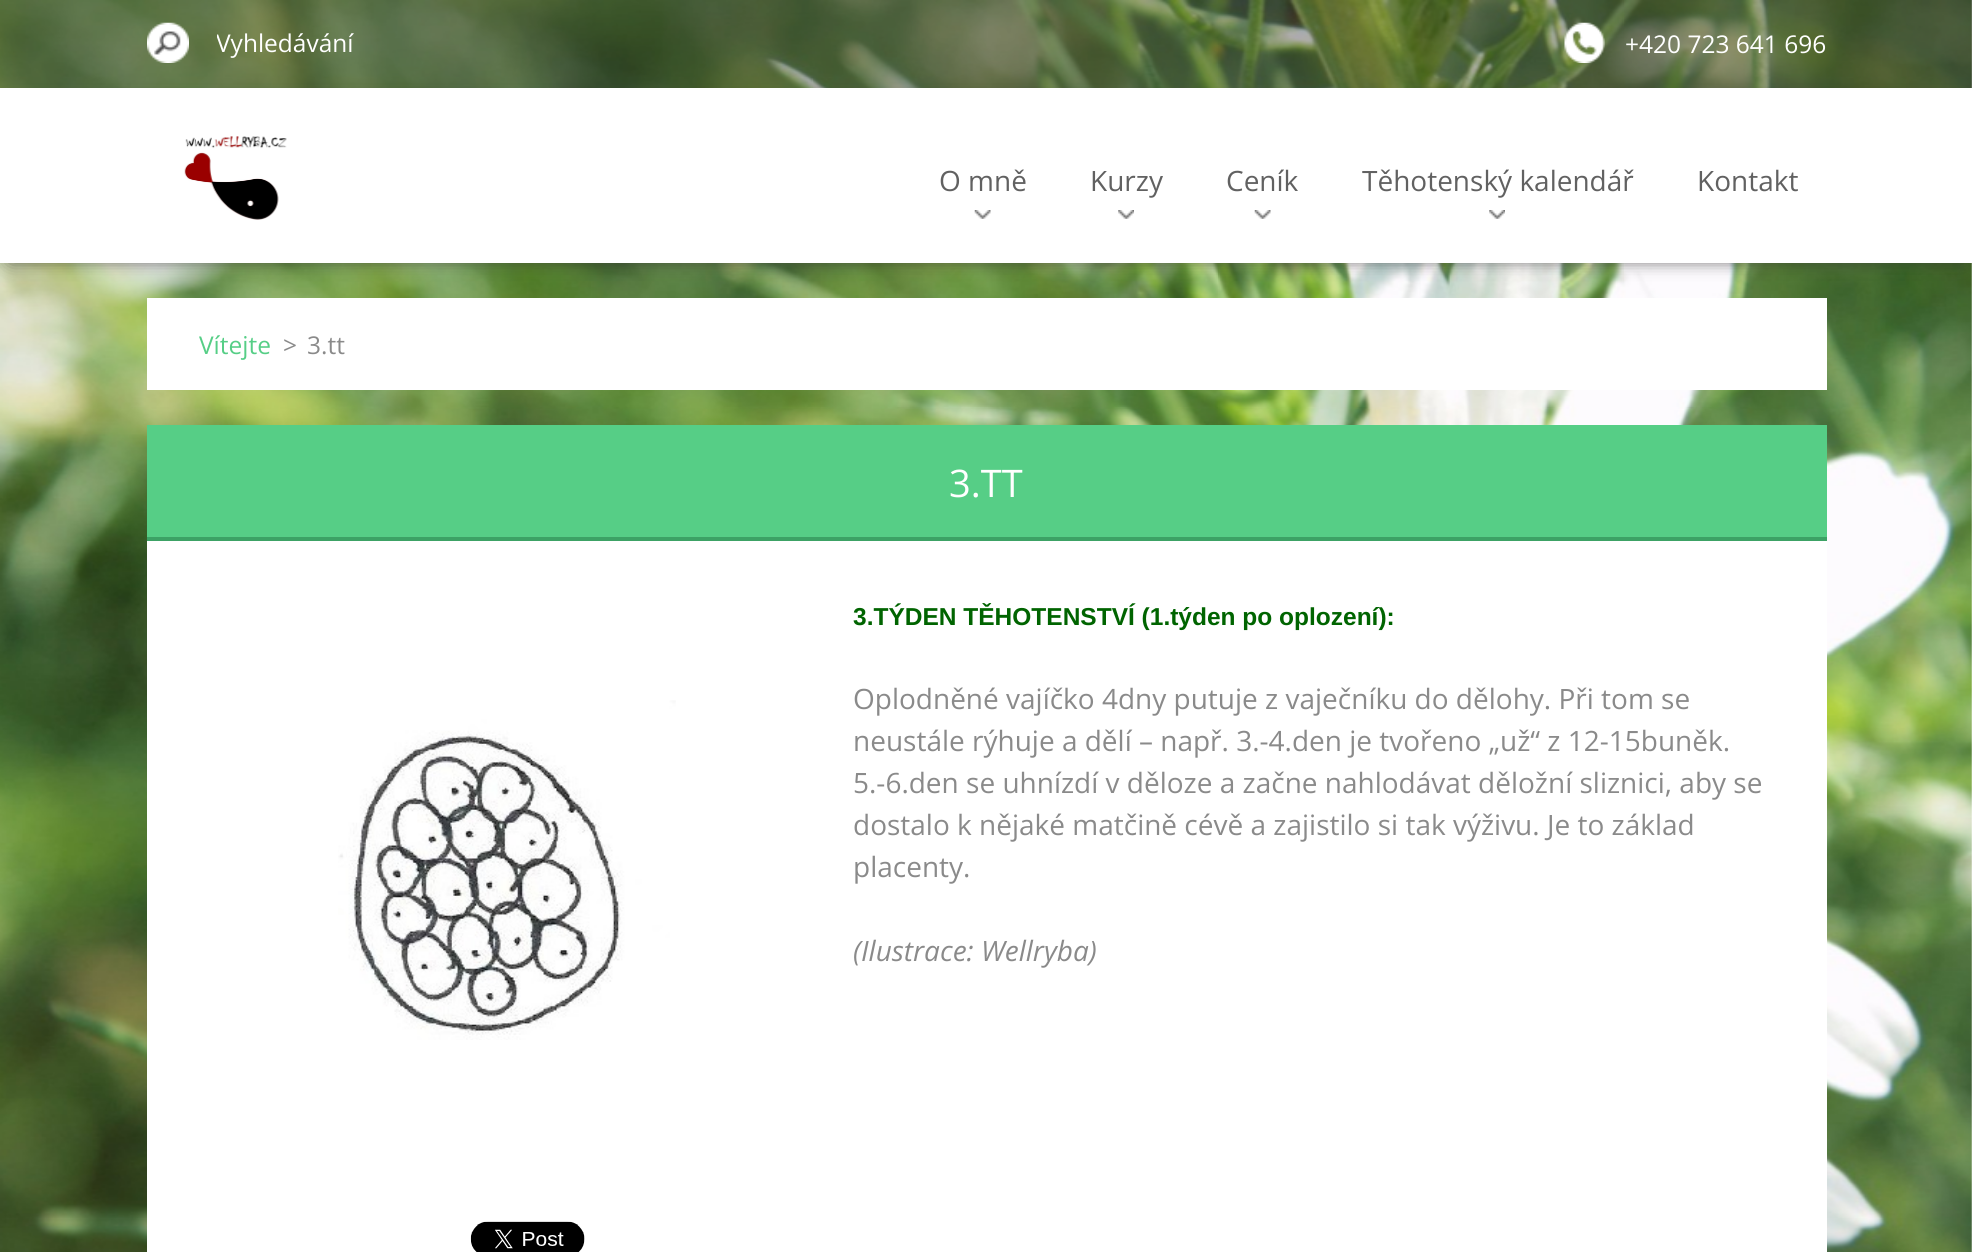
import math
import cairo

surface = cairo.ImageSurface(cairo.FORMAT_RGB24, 1972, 1252)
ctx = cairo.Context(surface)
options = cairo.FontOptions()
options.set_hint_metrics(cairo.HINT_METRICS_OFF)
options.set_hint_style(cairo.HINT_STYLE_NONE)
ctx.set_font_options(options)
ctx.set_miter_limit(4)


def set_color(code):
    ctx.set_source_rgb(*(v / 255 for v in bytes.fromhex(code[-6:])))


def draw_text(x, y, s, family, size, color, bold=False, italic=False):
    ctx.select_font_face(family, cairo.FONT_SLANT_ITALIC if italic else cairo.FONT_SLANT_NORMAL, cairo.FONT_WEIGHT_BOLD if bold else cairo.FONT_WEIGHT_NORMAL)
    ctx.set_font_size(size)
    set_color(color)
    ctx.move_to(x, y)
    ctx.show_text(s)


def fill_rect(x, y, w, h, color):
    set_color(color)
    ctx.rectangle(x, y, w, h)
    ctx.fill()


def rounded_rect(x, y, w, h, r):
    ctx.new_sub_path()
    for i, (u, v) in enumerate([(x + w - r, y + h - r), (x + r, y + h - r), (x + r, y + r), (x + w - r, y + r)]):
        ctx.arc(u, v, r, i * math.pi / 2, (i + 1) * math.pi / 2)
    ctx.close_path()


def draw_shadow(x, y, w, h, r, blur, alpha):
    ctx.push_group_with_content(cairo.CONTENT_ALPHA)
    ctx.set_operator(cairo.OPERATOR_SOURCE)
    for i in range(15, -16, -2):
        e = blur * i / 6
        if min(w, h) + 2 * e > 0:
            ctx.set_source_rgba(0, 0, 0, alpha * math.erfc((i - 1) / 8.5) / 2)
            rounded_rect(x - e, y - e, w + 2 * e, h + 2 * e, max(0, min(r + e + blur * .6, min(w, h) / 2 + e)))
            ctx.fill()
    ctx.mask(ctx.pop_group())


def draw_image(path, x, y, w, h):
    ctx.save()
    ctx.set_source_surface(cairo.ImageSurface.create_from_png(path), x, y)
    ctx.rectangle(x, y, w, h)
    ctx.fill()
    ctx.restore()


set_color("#ffffff")
ctx.paint()
draw_image("assets/img1.png", 0, 0, 1972, 1252)
ctx.set_source_rgba(0.208, 0.208, 0.208, 0.4)
ctx.rectangle(0, 0, 1972, 88)
ctx.fill()
draw_image("assets/img2.png", 147, 22, 42, 41)
ctx.save()
ctx.rectangle(217, 26, 277, 34)
ctx.clip()
draw_text(216, 52, "Vyhledávání", "Open Sans", 24.5, "#ffffff")
ctx.restore()
draw_image("assets/img3.png", 1564, 22, 41, 41)
draw_text(1625, 53, "+420 723 641 696", "Open Sans", 24.5, "#ffffff")
set_color("#353535")
draw_shadow(11, 105, 1951, 154, 0, 9, 1)
fill_rect(0, 88, 1972, 175, "#ffffff")
draw_image("assets/img4.png", 184, 136, 103, 84)
draw_text(939, 191, "O mně", "Open Sans", 28, "#616161")
draw_image("assets/img5.png", 974, 210, 17, 9)
draw_text(1090, 191, "Kurzy", "Open Sans", 28, "#616161")
draw_image("assets/img6.png", 1118, 210, 16, 9)
draw_text(1226, 191, "Ceník", "Open Sans", 28, "#616161")
draw_image("assets/img5.png", 1254, 210, 17, 9)
draw_text(1362, 191, "Těhotenský kalendář", "Open Sans", 28, "#616161")
draw_image("assets/img6.png", 1489, 210, 16, 9)
draw_text(1697, 191, "Kontakt", "Open Sans", 28, "#616161")
fill_rect(147, 298, 1680, 92, "#ffffff")
draw_text(199, 354, "Vítejte", "Open Sans", 24.5, "#56ce86")
draw_text(283, 354, ">", "Open Sans", 24.5, "#8a8a8a")
draw_text(307, 354, "3.tt", "Open Sans", 24.5, "#8a8a8a")
fill_rect(147, 541, 1680, 711, "#ffffff")
fill_rect(147, 425, 1680, 112, "#56ce86")
fill_rect(147, 537, 1680, 4, "#3ca265")
draw_text(949, 497, "3.TT", "Open Sans", 38, "#ffffff")
draw_image("assets/img7.png", 338, 700, 338, 340)
draw_text(853, 625, "3.TÝDEN TĚHOTENSTVÍ (1.týden po oplození):", "Liberation Sans", 24.5, "#006400", bold=True)
draw_text(853, 709, "Oplodněné vajíčko 4dny putuje z vaječníku do dělohy. Při tom se", "Open Sans", 28, "#8a8a8a")
draw_text(853, 751, "neustále rýhuje a dělí – např. 3.-4.den je tvořeno „už“ z 12-15buněk.", "Open Sans", 28, "#8a8a8a")
draw_text(853, 793, "5.-6.den se uhnízdí v děloze a začne nahlodávat děložní sliznici, aby se", "Open Sans", 28, "#8a8a8a")
draw_text(853, 835, "dostalo k nějaké matčině cévě a zajistilo si tak výživu. Je to základ", "Open Sans", 28, "#8a8a8a")
draw_text(853, 877, "placenty.", "Open Sans", 28, "#8a8a8a")
draw_text(853, 961, "(Ilustrace: Wellryba)", "Open Sans", 28, "#8a8a8a", italic=True)
draw_image("assets/img8.png", 470, 1221, 115, 31)
surface.write_to_png("output.png")
